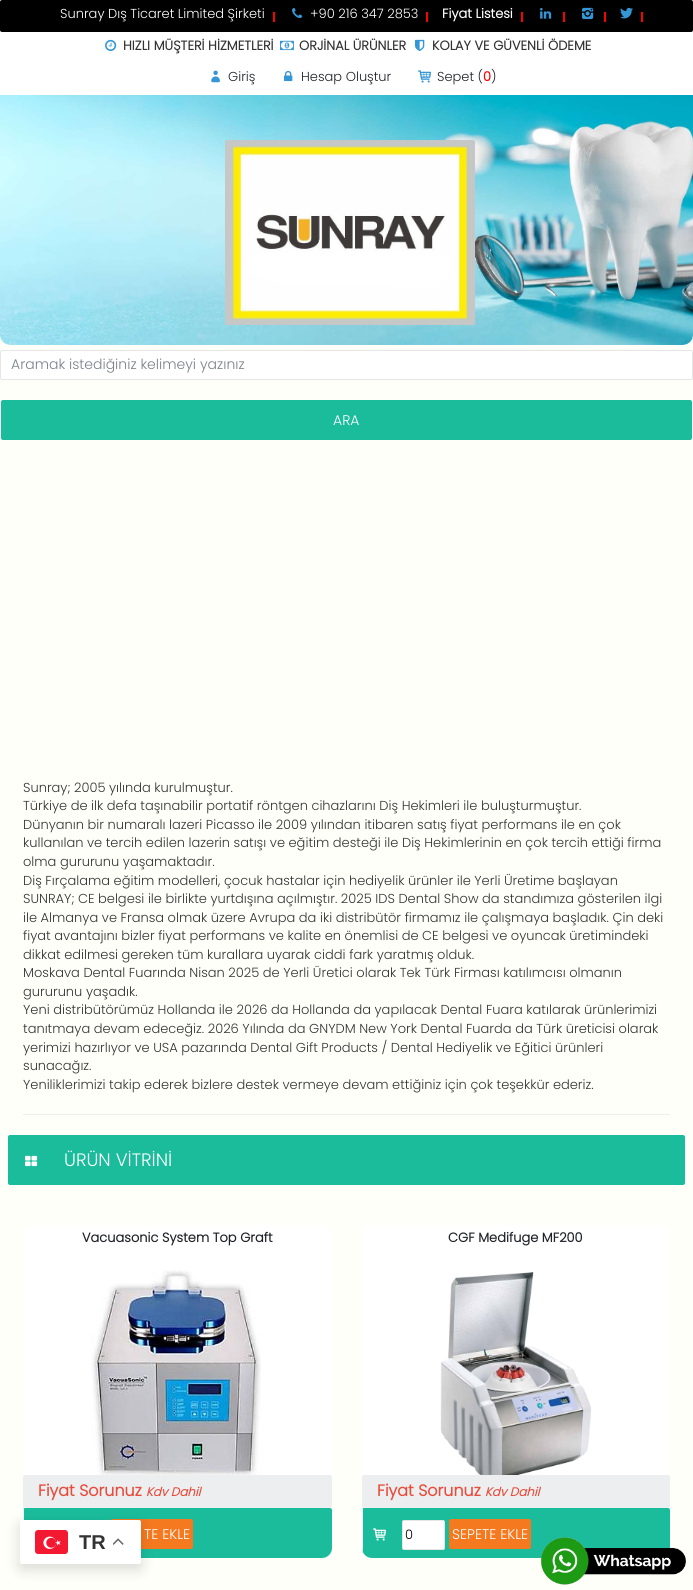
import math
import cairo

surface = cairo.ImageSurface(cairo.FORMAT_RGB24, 693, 1590)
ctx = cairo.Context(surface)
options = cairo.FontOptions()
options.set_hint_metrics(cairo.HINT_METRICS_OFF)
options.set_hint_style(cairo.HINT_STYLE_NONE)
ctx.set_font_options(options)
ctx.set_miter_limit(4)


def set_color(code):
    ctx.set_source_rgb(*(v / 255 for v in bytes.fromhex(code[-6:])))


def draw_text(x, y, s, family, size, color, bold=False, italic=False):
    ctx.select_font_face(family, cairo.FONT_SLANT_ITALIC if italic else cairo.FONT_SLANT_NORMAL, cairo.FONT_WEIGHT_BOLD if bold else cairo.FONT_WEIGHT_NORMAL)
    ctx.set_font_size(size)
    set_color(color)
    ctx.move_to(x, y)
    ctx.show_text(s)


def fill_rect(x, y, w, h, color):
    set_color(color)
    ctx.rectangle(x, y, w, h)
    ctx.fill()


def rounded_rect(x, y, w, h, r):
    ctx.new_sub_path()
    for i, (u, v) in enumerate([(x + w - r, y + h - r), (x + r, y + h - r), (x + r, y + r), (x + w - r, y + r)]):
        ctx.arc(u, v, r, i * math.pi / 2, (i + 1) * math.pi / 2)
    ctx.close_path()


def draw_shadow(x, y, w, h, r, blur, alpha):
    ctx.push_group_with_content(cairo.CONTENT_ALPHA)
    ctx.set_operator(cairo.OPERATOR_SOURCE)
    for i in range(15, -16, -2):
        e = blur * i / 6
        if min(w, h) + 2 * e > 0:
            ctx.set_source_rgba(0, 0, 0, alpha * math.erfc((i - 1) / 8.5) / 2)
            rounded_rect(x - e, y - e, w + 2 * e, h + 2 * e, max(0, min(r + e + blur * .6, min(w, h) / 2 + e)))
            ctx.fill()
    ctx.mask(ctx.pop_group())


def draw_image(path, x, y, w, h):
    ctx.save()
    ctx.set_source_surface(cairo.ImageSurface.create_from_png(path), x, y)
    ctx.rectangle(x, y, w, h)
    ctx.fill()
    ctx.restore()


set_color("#ffffff")
ctx.paint()
gradient = cairo.LinearGradient(346, 0, 347, 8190)
gradient.add_color_stop_rgba(0.82, 1, 1, 0.98, 1)
gradient.add_color_stop_rgba(1, 0.867, 0.89, 0.902, 1)
ctx.set_source(gradient)
rounded_rect(0, 0, 693, 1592, 2)
ctx.fill()
set_color("#000000")
rounded_rect(0, 0, 693, 32, 2)
ctx.fill()
draw_text(60, 18, "Sunray Dış Ticaret Limited Şirketi", "Poppins Light", 13, "#ffffff")
fill_rect(273, 12, 2, 10, "#ff0000")
draw_image("assets/img1.png", 292, 7, 11, 12)
draw_text(310, 18, "+90 216 347 2853", "Poppins Light", 13, "#ffffff")
fill_rect(426, 12, 2, 10, "#ff0000")
draw_text(442, 18, "Fiyat Listesi", "Poppins", 13, "#ffffff", bold=True)
fill_rect(521, 12, 2, 10, "#ff0000")
draw_image("assets/img2.png", 540, 8, 12, 11)
fill_rect(563, 12, 2, 10, "#ff0000")
draw_image("assets/img3.png", 582, 7, 12, 13)
fill_rect(604, 12, 2, 10, "#ff0000")
draw_image("assets/img4.png", 620, 7, 13, 12)
fill_rect(641, 12, 2, 10, "#ff0000")
set_color("#ffffff")
rounded_rect(0, 32, 693, 63, 2)
ctx.fill()
draw_image("assets/img5.png", 105, 39, 12, 12)
draw_text(123, 50, "HIZLI MÜŞTERİ HİZMETLERİ", "Poppins", 13, "#333333", bold=True)
draw_image("assets/img6.png", 280, 40, 14, 11)
draw_text(299, 50, "ORJİNAL ÜRÜNLER", "Poppins", 13, "#333333", bold=True)
draw_image("assets/img7.png", 415, 39, 10, 12)
draw_text(432, 50, "KOLAY VE GÜVENLİ ÖDEME", "Poppins", 13, "#333333", bold=True)
draw_image("assets/img8.png", 211, 70, 9, 13)
draw_text(228, 81, "Giriş", "Poppins Light", 13, "#1f2228")
draw_image("assets/img9.png", 284, 70, 9, 12)
draw_text(301, 81, "Hesap Oluştur", "Poppins Light", 13, "#1f2228")
draw_image("assets/img10.png", 418, 70, 13, 13)
draw_text(437, 81, "Sepet (", "Poppins Light", 13, "#1f2228")
draw_text(483, 81, "0", "Poppins", 13, "#ff0000", bold=True)
draw_text(491, 81, ")", "Poppins Light", 13, "#1f2228")
draw_image("assets/img11.png", 0, 95, 693, 250)
draw_image("assets/img12.png", 225, 140, 250, 185)
set_color("#ffffff")
rounded_rect(0.5, 350.5, 692, 29, 1.5)
ctx.fill_preserve()
set_color("#e6e6e6")
ctx.set_line_width(1)
ctx.stroke()
draw_text(11, 369, "Aramak istediğiniz kelimeyi yazınız", "Poppins Light", 14, "#7a8188")
fill_rect(692, 401, 1, 38, "#ffffff")
fill_rect(0, 401, 1, 38, "#ffffff")
set_color("#1abc9c")
rounded_rect(1, 400, 691, 40, 2)
ctx.fill()
draw_text(333, 425, "ARA", "Poppins Light", 14, "#ffffff")
draw_text(23, 792, "Sunray; 2005 yılında kurulmuştur.", "Poppins Light", 13, "#333333")
draw_text(23, 810, "Türkiye de ilk defa taşınabilir portatif röntgen cihazlarını Diş Hekimleri ile buluşturmuştur.", "Poppins Light", 13, "#333333")
draw_text(23, 829, "Dünyanın bir numaralı lazeri Picasso ile 2009 yılından itibaren satış fiyat performans ile en çok", "Poppins Light", 13, "#333333")
draw_text(23, 847, "kullanılan ve tercih edilen lazerin satışı ve eğitim desteği ile Diş Hekimlerinin en çok tercih ettiği firma", "Poppins Light", 13, "#333333")
draw_text(23, 866, "olma gururunu yaşamaktadır.", "Poppins Light", 13, "#333333")
draw_text(23, 885, "Diş Fırçalama eğitim modelleri, çocuk hastalar için hediyelik ürünler ile Yerli Üretime başlayan", "Poppins Light", 13, "#333333")
draw_text(23, 903, "SUNRAY; CE belgesi ile birlikte yurtdışına açılmıştır. 2025 IDS Dental Show da standımıza gösterilen ilgi", "Poppins Light", 13, "#333333")
draw_text(23, 922, "ile Almanya ve Fransa olmak üzere Avrupa da iki distribütör firmamız ile çalışmaya başladık. Çin deki", "Poppins Light", 13, "#333333")
draw_text(23, 940, "fiyat avantajını bizler fiyat performans ve kalite en önemlisi de CE belgesi ve oyuncak üretimindeki", "Poppins Light", 13, "#333333")
draw_text(23, 959, "dikkat edilmesi gereken tüm kurallara uyarak ciddi fark yaratmış olduk.", "Poppins Light", 13, "#333333")
draw_text(23, 977, "Moskava Dental Fuarında Nisan 2025 de Yerli Üretici olarak Tek Türk Firması katılımcısı olmanın", "Poppins Light", 13, "#333333")
draw_text(23, 996, "gururunu yaşadık.", "Poppins Light", 13, "#333333")
draw_text(23, 1014, "Yeni distribütörümüz Hollanda ile 2026 da Hollanda da yapılacak Dental Fuara katılarak ürünlerimizi", "Poppins Light", 13, "#333333")
draw_text(23, 1033, "tanıtmaya devam edeceğiz. 2026 Yılında da GNYDM New York Dental Fuarda da Türk üreticisi olarak", "Poppins Light", 13, "#333333")
draw_text(23, 1052, "yerimizi hazırlıyor ve USA pazarında Dental Gift Products / Dental Hediyelik ve Eğitici ürünleri", "Poppins Light", 13, "#333333")
draw_text(23, 1070, "sunacağız.", "Poppins Light", 13, "#333333")
draw_text(23, 1089, "Yeniliklerimizi takip ederek bizlere destek vermeye devam ettiğiniz için çok teşekkür ederiz.", "Poppins Light", 13, "#333333")
fill_rect(23, 1114, 647, 1, "#eeeeee")
set_color("#1abc9c")
rounded_rect(8, 1135, 677, 50, 2)
ctx.fill()
draw_image("assets/img13.png", 25, 1155, 13, 12)
draw_text(64, 1166, "ÜRÜN VİTRİNİ", "Poppins Light", 18, "#ffffff")
ctx.new_path()
ctx.move_to(33, 1225)
ctx.line_to(322, 1225)
ctx.curve_to(327.5, 1225, 332, 1229.5, 332, 1235)
ctx.line_to(332, 1475)
ctx.line_to(23, 1475)
ctx.line_to(23, 1235)
ctx.curve_to(23, 1229.5, 27.5, 1225, 33, 1225)
ctx.close_path()
ctx.fill()
draw_text(82, 1242, "Vacuasonic System Top Graft", "Poppins", 13, "#1f2228", bold=True)
draw_image("assets/img14.png", 91, 1270, 170, 205)
set_color("#edeeef")
rounded_rect(23, 1475, 309, 33, 2)
ctx.fill()
draw_text(38, 1496, "Fiyat Sorunuz", "Poppins", 16, "#e74c3c", bold=True)
draw_text(146, 1496, "Kdv Dahil", "Poppins", 12, "#e74c3c", bold=True, italic=True)
set_color("#1abc9c")
ctx.new_path()
ctx.move_to(25, 1508)
ctx.line_to(330, 1508)
ctx.curve_to(331, 1508, 332, 1509, 332, 1510)
ctx.line_to(332, 1548)
ctx.curve_to(332, 1553.5, 327.5, 1558, 322, 1558)
ctx.line_to(33, 1558)
ctx.curve_to(27.5, 1558, 23, 1553.5, 23, 1548)
ctx.line_to(23, 1510)
ctx.curve_to(23, 1509, 24, 1508, 25, 1508)
ctx.close_path()
ctx.fill()
fill_rect(23, 1509, 1, 11, "#e7f9fc")
set_color("#f5791f")
rounded_rect(111, 1519, 82, 30, 2)
ctx.fill()
draw_text(144, 1539, "TE EKLE", "Poppins Light", 14, "#ffffff")
ctx.new_path()
ctx.move_to(372, 1225)
ctx.line_to(660, 1225)
ctx.curve_to(665.5, 1225, 670, 1229.5, 670, 1235)
ctx.line_to(670, 1475)
ctx.line_to(362, 1475)
ctx.line_to(362, 1235)
ctx.curve_to(362, 1229.5, 366.5, 1225, 372, 1225)
ctx.close_path()
ctx.fill()
draw_text(448, 1242, "CGF Medifuge MF200", "Poppins", 13, "#1f2228", bold=True)
draw_image("assets/img15.png", 440, 1272, 151, 203)
set_color("#edeeef")
rounded_rect(362, 1475, 308, 33, 2)
ctx.fill()
draw_text(377, 1496, "Fiyat Sorunuz", "Poppins", 16, "#e74c3c", bold=True)
draw_text(485, 1496, "Kdv Dahil", "Poppins", 12, "#e74c3c", bold=True, italic=True)
set_color("#1abc9c")
ctx.new_path()
ctx.move_to(364, 1508)
ctx.line_to(668, 1508)
ctx.curve_to(669, 1508, 670, 1509, 670, 1510)
ctx.line_to(670, 1548)
ctx.curve_to(670, 1553.5, 665.5, 1558, 660, 1558)
ctx.line_to(372, 1558)
ctx.curve_to(366.5, 1558, 362, 1553.5, 362, 1548)
ctx.line_to(362, 1510)
ctx.curve_to(362, 1509, 363, 1508, 364, 1508)
ctx.close_path()
ctx.fill()
ctx.save()
ctx.new_path()
ctx.move_to(362, 1508)
ctx.line_to(670, 1508)
ctx.line_to(670, 1548)
ctx.curve_to(670, 1553.5, 665.5, 1558, 660, 1558)
ctx.line_to(372, 1558)
ctx.curve_to(366.5, 1558, 362, 1553.5, 362, 1548)
ctx.close_path()
ctx.clip()
fill_rect(362, 1509, 1, 48, "#e7f9fc")
ctx.restore()
draw_image("assets/img16.png", 373, 1528, 13, 13)
set_color("#ffffff")
rounded_rect(402.5, 1520.5, 42, 29, 1.5)
ctx.fill_preserve()
set_color("#e6e6e6")
ctx.stroke()
draw_text(405, 1539, "0", "Poppins Light", 13, "#000000")
set_color("#f5791f")
rounded_rect(449, 1519, 82, 30, 2)
ctx.fill()
draw_text(452, 1539, "SEPETE EKLE", "Poppins Light", 14, "#ffffff")
set_color("#000000")
draw_shadow(20, 1525, 121, 44, 2, 7.5, 0.15)
set_color("#ffffff")
rounded_rect(20, 1520, 121, 44, 2)
ctx.fill()
draw_image("assets/img17.png", 35, 1530, 33, 24)
draw_text(79, 1549, "TR", "Liberation Sans", 20, "#333333", bold=True)
draw_image("assets/img18.png", 113, 1538, 11, 7)
draw_image("assets/img19.png", 541, 1537, 145, 48)
surface.write_to_png("output.png")
